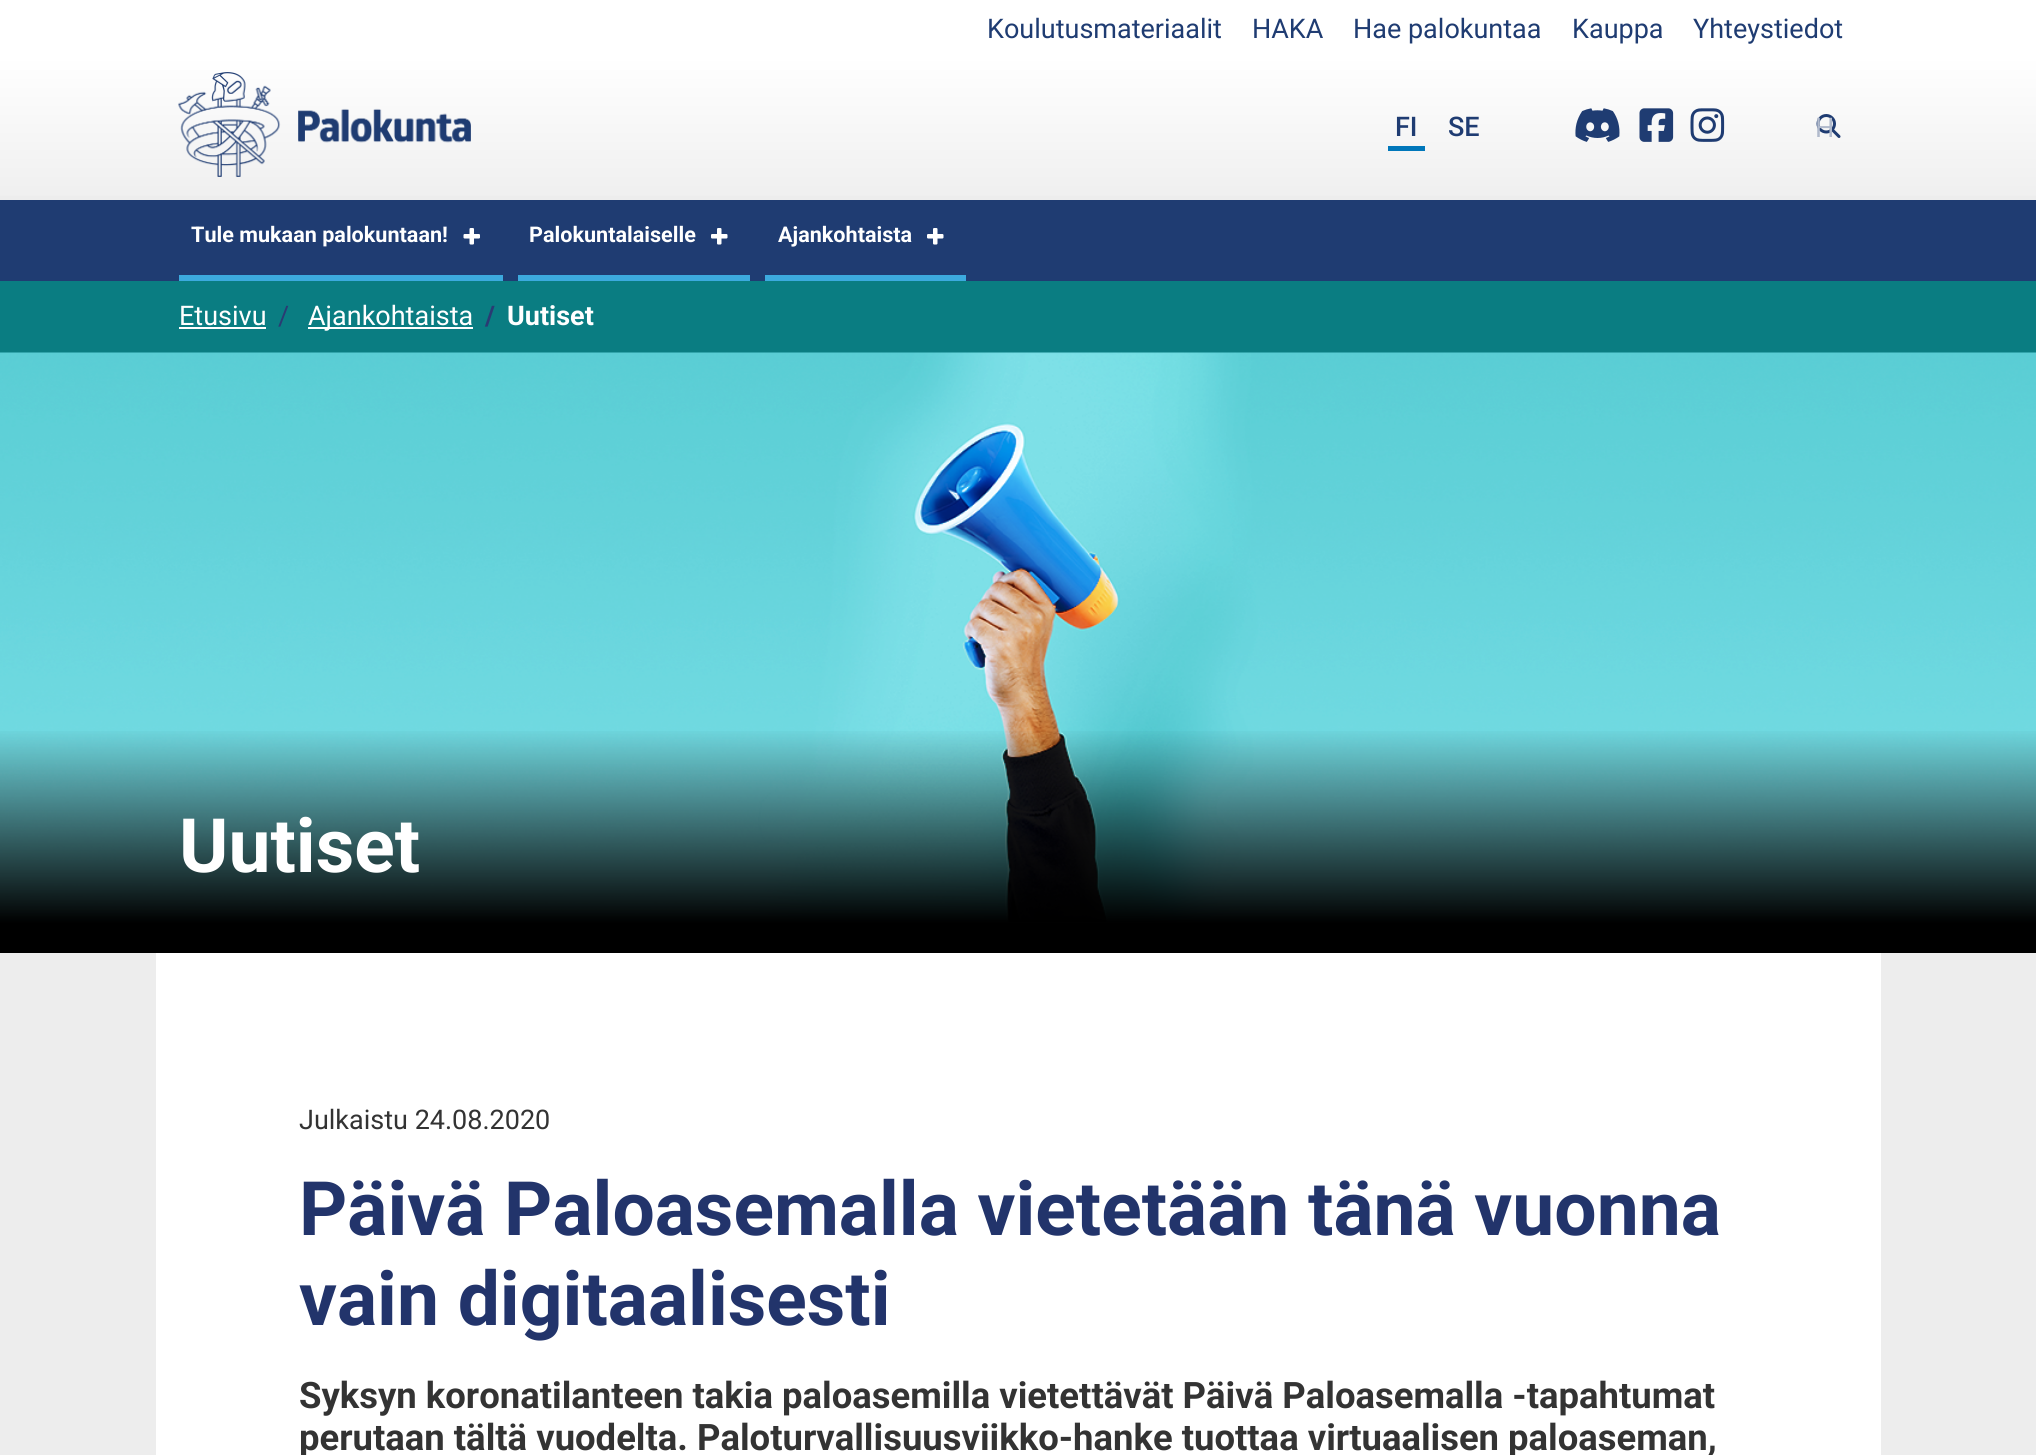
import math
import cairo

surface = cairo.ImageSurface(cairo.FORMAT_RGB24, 2036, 1455)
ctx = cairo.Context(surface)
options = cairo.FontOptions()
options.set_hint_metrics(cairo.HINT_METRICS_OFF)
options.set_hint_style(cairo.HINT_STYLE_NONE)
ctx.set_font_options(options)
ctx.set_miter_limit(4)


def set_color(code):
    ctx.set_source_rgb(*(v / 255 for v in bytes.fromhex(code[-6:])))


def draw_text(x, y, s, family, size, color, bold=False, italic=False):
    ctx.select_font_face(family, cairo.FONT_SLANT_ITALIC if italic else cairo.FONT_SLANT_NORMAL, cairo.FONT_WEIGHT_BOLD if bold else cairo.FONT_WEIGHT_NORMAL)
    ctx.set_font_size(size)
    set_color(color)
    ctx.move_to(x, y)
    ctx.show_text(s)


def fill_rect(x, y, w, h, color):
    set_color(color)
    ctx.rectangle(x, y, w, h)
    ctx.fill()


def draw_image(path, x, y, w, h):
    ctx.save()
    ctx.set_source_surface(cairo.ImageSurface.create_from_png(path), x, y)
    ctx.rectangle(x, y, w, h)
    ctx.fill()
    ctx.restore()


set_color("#ededed")
ctx.paint()
fill_rect(0, 0, 2036, 57, "#ffffff")
draw_text(987, 38, "Koulutusmateriaalit", "Roboto", 27, "#1f3c72")
draw_text(1252, 38, "HAKA", "Roboto", 27, "#1f3c72")
draw_text(1353, 38, "Hae palokuntaa", "Roboto", 27, "#1f3c72")
draw_text(1572, 38, "Kauppa", "Roboto", 27, "#1f3c72")
draw_text(1693, 38, "Yhteystiedot", "Roboto", 27, "#1f3c72")
gradient = cairo.LinearGradient(1019, 57, 1019, 200)
gradient.add_color_stop_rgba(0, 1, 1, 1, 1)
gradient.add_color_stop_rgba(1, 0.937, 0.937, 0.937, 1)
ctx.set_source(gradient)
ctx.rectangle(0, 57, 2036, 139)
ctx.fill()
draw_image("assets/img1.png", 178, 72, 293, 105)
fill_rect(1388, 146, 37, 5, "#0077ba")
draw_text(1395, 136, "FI", "Roboto Medium", 27, "#1f3c72")
draw_text(1448, 136, "SE", "Roboto Medium", 27, "#1f3c72")
draw_image("assets/img2.png", 1575, 108, 45, 34)
draw_image("assets/img3.png", 1639, 108, 35, 34)
draw_image("assets/img4.png", 1690, 108, 35, 34)
draw_image("assets/img5.png", 1816, 114, 25, 24)
draw_text(1815, 137, "H", "Roboto", 27, "#b1bacc")
fill_rect(0, 200, 2036, 81, "#1f3c72")
fill_rect(179, 275, 324, 6, "#3caade")
draw_text(191, 242, "Tule mukaan palokuntaan!", "Roboto", 21.6, "#ffffff", bold=True)
draw_image("assets/img6.png", 463, 228, 17, 17)
fill_rect(518, 275, 232, 6, "#3caade")
draw_text(529, 242, "Palokuntalaiselle", "Roboto", 21.6, "#ffffff", bold=True)
draw_image("assets/img7.png", 711, 228, 17, 17)
fill_rect(765, 275, 201, 6, "#3caade")
draw_text(778, 242, "Ajankohtaista", "Roboto", 21.6, "#ffffff", bold=True)
draw_image("assets/img7.png", 927, 228, 17, 17)
fill_rect(0, 281, 2036, 72, "#0a7d82")
draw_text(179, 325, "Etusivu", "Roboto", 27, "#ffffff")
fill_rect(179, 327, 87, 2, "#ffffff")
draw_text(278, 325, "/", "Roboto", 27, "#2a3b73")
fill_rect(308, 327, 165, 2, "#ffffff")
draw_text(308, 325, "Ajankohtaista", "Roboto", 27, "#ffffff")
draw_text(485, 325, "/", "Roboto", 27, "#2a3b73", bold=True)
draw_text(507, 325, "Uutiset", "Roboto", 27, "#ffffff", bold=True)
fill_rect(0, 923, 2036, 30, "#000000")
draw_image("assets/img8.png", 0, 352, 2036, 570)
gradient = cairo.LinearGradient(1019, 727, 1019, 923)
gradient.add_color_stop_rgba(0, 0, 0, 0, 0)
gradient.add_color_stop_rgba(1, 0, 0, 0, 1)
ctx.set_source(gradient)
ctx.rectangle(0, 731, 2036, 192)
ctx.fill()
draw_text(179, 872, "Uutiset", "Roboto", 75, "#ffffff", bold=True)
fill_rect(156, 953, 1725, 502, "#ffffff")
draw_text(299, 1129, "Julkaistu 24.08.2020", "Roboto", 27, "#333333")
draw_text(299, 1235, "Päivä Paloasemalla vietetään tänä vuonna", "Roboto", 75, "#22346b", bold=True)
draw_text(299, 1325, "vain digitaalisesti", "Roboto", 75, "#22346b", bold=True)
draw_text(299, 1408, "Syksyn koronatilanteen takia paloasemilla vietettävät Päivä Paloasemalla -tapahtumat", "Roboto", 36.45, "#333333", bold=True)
draw_text(299, 1450, "perutaan tältä vuodelta. Paloturvallisuusviikko-hanke tuottaa virtuaalisen paloaseman,", "Roboto", 36.45, "#333333", bold=True)
surface.write_to_png("output.png")
